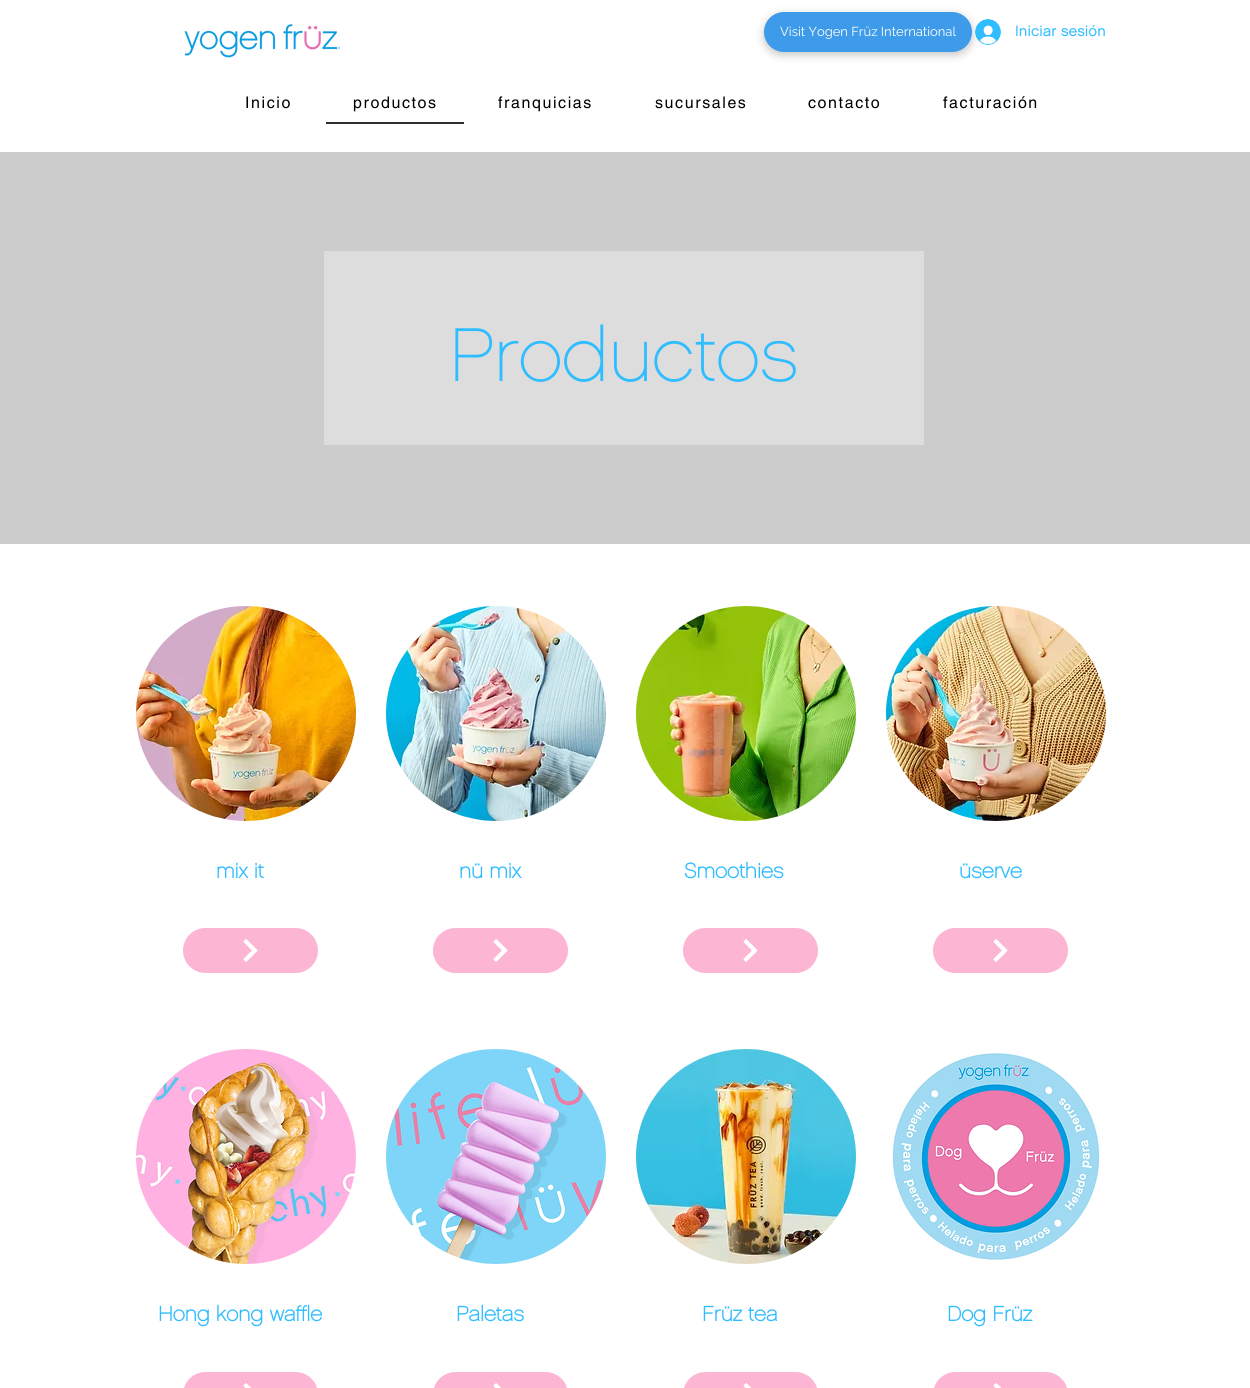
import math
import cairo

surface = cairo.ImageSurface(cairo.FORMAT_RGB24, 1250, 1388)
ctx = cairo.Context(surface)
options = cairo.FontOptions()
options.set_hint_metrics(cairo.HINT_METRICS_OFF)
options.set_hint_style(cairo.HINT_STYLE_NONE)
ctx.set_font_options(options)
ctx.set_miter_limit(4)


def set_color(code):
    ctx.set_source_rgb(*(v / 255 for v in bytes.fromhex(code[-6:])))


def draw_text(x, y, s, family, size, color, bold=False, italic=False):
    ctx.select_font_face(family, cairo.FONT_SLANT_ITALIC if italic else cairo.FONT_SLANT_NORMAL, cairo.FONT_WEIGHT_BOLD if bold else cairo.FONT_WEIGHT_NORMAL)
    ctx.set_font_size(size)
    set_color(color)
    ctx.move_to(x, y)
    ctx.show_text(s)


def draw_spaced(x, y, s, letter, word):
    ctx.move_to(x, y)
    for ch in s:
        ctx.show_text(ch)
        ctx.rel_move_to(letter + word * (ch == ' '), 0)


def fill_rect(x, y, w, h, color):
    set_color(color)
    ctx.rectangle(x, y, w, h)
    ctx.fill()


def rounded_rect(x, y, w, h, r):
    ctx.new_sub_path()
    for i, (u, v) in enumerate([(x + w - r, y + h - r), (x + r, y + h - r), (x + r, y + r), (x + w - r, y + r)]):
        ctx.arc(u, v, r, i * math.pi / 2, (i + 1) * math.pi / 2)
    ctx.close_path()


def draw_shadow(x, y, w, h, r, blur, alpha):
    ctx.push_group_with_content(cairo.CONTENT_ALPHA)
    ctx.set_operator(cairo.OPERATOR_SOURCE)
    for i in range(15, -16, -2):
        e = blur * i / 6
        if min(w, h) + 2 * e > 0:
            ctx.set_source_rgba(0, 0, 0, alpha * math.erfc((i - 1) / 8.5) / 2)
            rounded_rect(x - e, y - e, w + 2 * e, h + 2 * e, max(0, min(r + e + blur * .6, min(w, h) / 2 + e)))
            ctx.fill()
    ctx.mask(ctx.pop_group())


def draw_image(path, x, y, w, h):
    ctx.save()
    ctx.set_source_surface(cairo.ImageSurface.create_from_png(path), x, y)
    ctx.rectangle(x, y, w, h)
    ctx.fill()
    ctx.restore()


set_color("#ffffff")
ctx.paint()
draw_image("assets/img1.png", 184, 24, 156, 34)
set_color("#000000")
draw_shadow(764, 15, 208, 40, 20, 4.5, 0.23)
set_color("#3d9be9")
rounded_rect(764, 12, 208, 40, 20)
ctx.fill()
draw_text(780, 36, "Visit Yogen Früz International", "Raleway", 13, "#ffffff")
draw_image("assets/img2.png", 975, 19, 26, 26)
draw_text(1015, 36, "Iniciar sesión", "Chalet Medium", 15, "#30bdff")
ctx.select_font_face("helvetica")
ctx.set_font_size(16)
set_color("#000000")
draw_spaced(245, 108, "Inicio", 1.6, 0)
fill_rect(326, 122, 138, 2, "#2f2e2e")
set_color("#000000")
draw_spaced(353, 108, "productos", 1.6, 0)
draw_spaced(498, 108, "franquicias", 1.6, 0)
draw_spaced(655, 108, "sucursales", 1.6, 0)
draw_spaced(808, 108, "contacto", 1.6, 0)
draw_spaced(943, 108, "facturación", 1.6, 0)
fill_rect(0, 152, 1250, 392, "#cccccc")
fill_rect(324, 251, 600, 194, "#dddddd")
draw_text(449, 381, "Productos", "Chalet Light", 76, "#30bdff")
draw_image("assets/img3.png", 136, 606, 220, 215)
draw_text(216, 878, "mix it", "Chalet", 21, "#30bdff", bold=True)
set_color("#fdb5d4")
rounded_rect(183, 928, 135, 45, 22.5)
ctx.fill()
draw_image("assets/img4.png", 243, 939, 15, 23)
draw_image("assets/img5.png", 136, 1049, 220, 215)
draw_text(158, 1321, "Hong kong waffle", "Chalet", 21, "#30bdff", bold=True)
set_color("#fdb5d4")
rounded_rect(183, 1372, 135, 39, 22.5)
ctx.fill()
draw_image("assets/img6.png", 243, 1383, 9, 5)
draw_image("assets/img7.png", 386, 606, 220, 215)
draw_text(459, 878, "nü mix", "Chalet", 21, "#30bdff", bold=True)
set_color("#fdb5d4")
rounded_rect(433, 928, 135, 45, 22.5)
ctx.fill()
draw_image("assets/img4.png", 493, 939, 15, 23)
draw_image("assets/img8.png", 386, 1049, 220, 215)
draw_text(456, 1321, "Paletas", "Chalet", 21, "#30bdff", bold=True)
set_color("#fdb5d4")
rounded_rect(433, 1372, 135, 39, 22.5)
ctx.fill()
draw_image("assets/img6.png", 493, 1383, 9, 5)
draw_image("assets/img9.png", 636, 606, 220, 215)
draw_text(684, 878, "Smoothies", "Chalet", 21, "#30bdff", bold=True)
set_color("#fdb5d4")
rounded_rect(683, 928, 135, 45, 22.5)
ctx.fill()
draw_image("assets/img4.png", 743, 939, 15, 23)
draw_image("assets/img10.png", 636, 1049, 220, 215)
draw_text(702, 1321, "Früz tea", "Chalet", 21, "#30bdff", bold=True)
set_color("#fdb5d4")
rounded_rect(683, 1372, 135, 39, 22.5)
ctx.fill()
draw_image("assets/img6.png", 743, 1383, 9, 5)
draw_image("assets/img11.png", 886, 606, 220, 215)
draw_text(959, 878, "üserve", "Chalet", 21, "#30bdff", bold=True)
set_color("#fdb5d4")
rounded_rect(933, 928, 135, 45, 22.5)
ctx.fill()
draw_image("assets/img4.png", 993, 939, 15, 23)
draw_image("assets/img12.png", 892, 1053, 208, 207)
draw_text(947, 1321, "Dog Früz", "Chalet", 21, "#30bdff", bold=True)
set_color("#fdb5d4")
rounded_rect(933, 1372, 135, 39, 22.5)
ctx.fill()
draw_image("assets/img6.png", 993, 1383, 9, 5)
surface.write_to_png("output.png")
